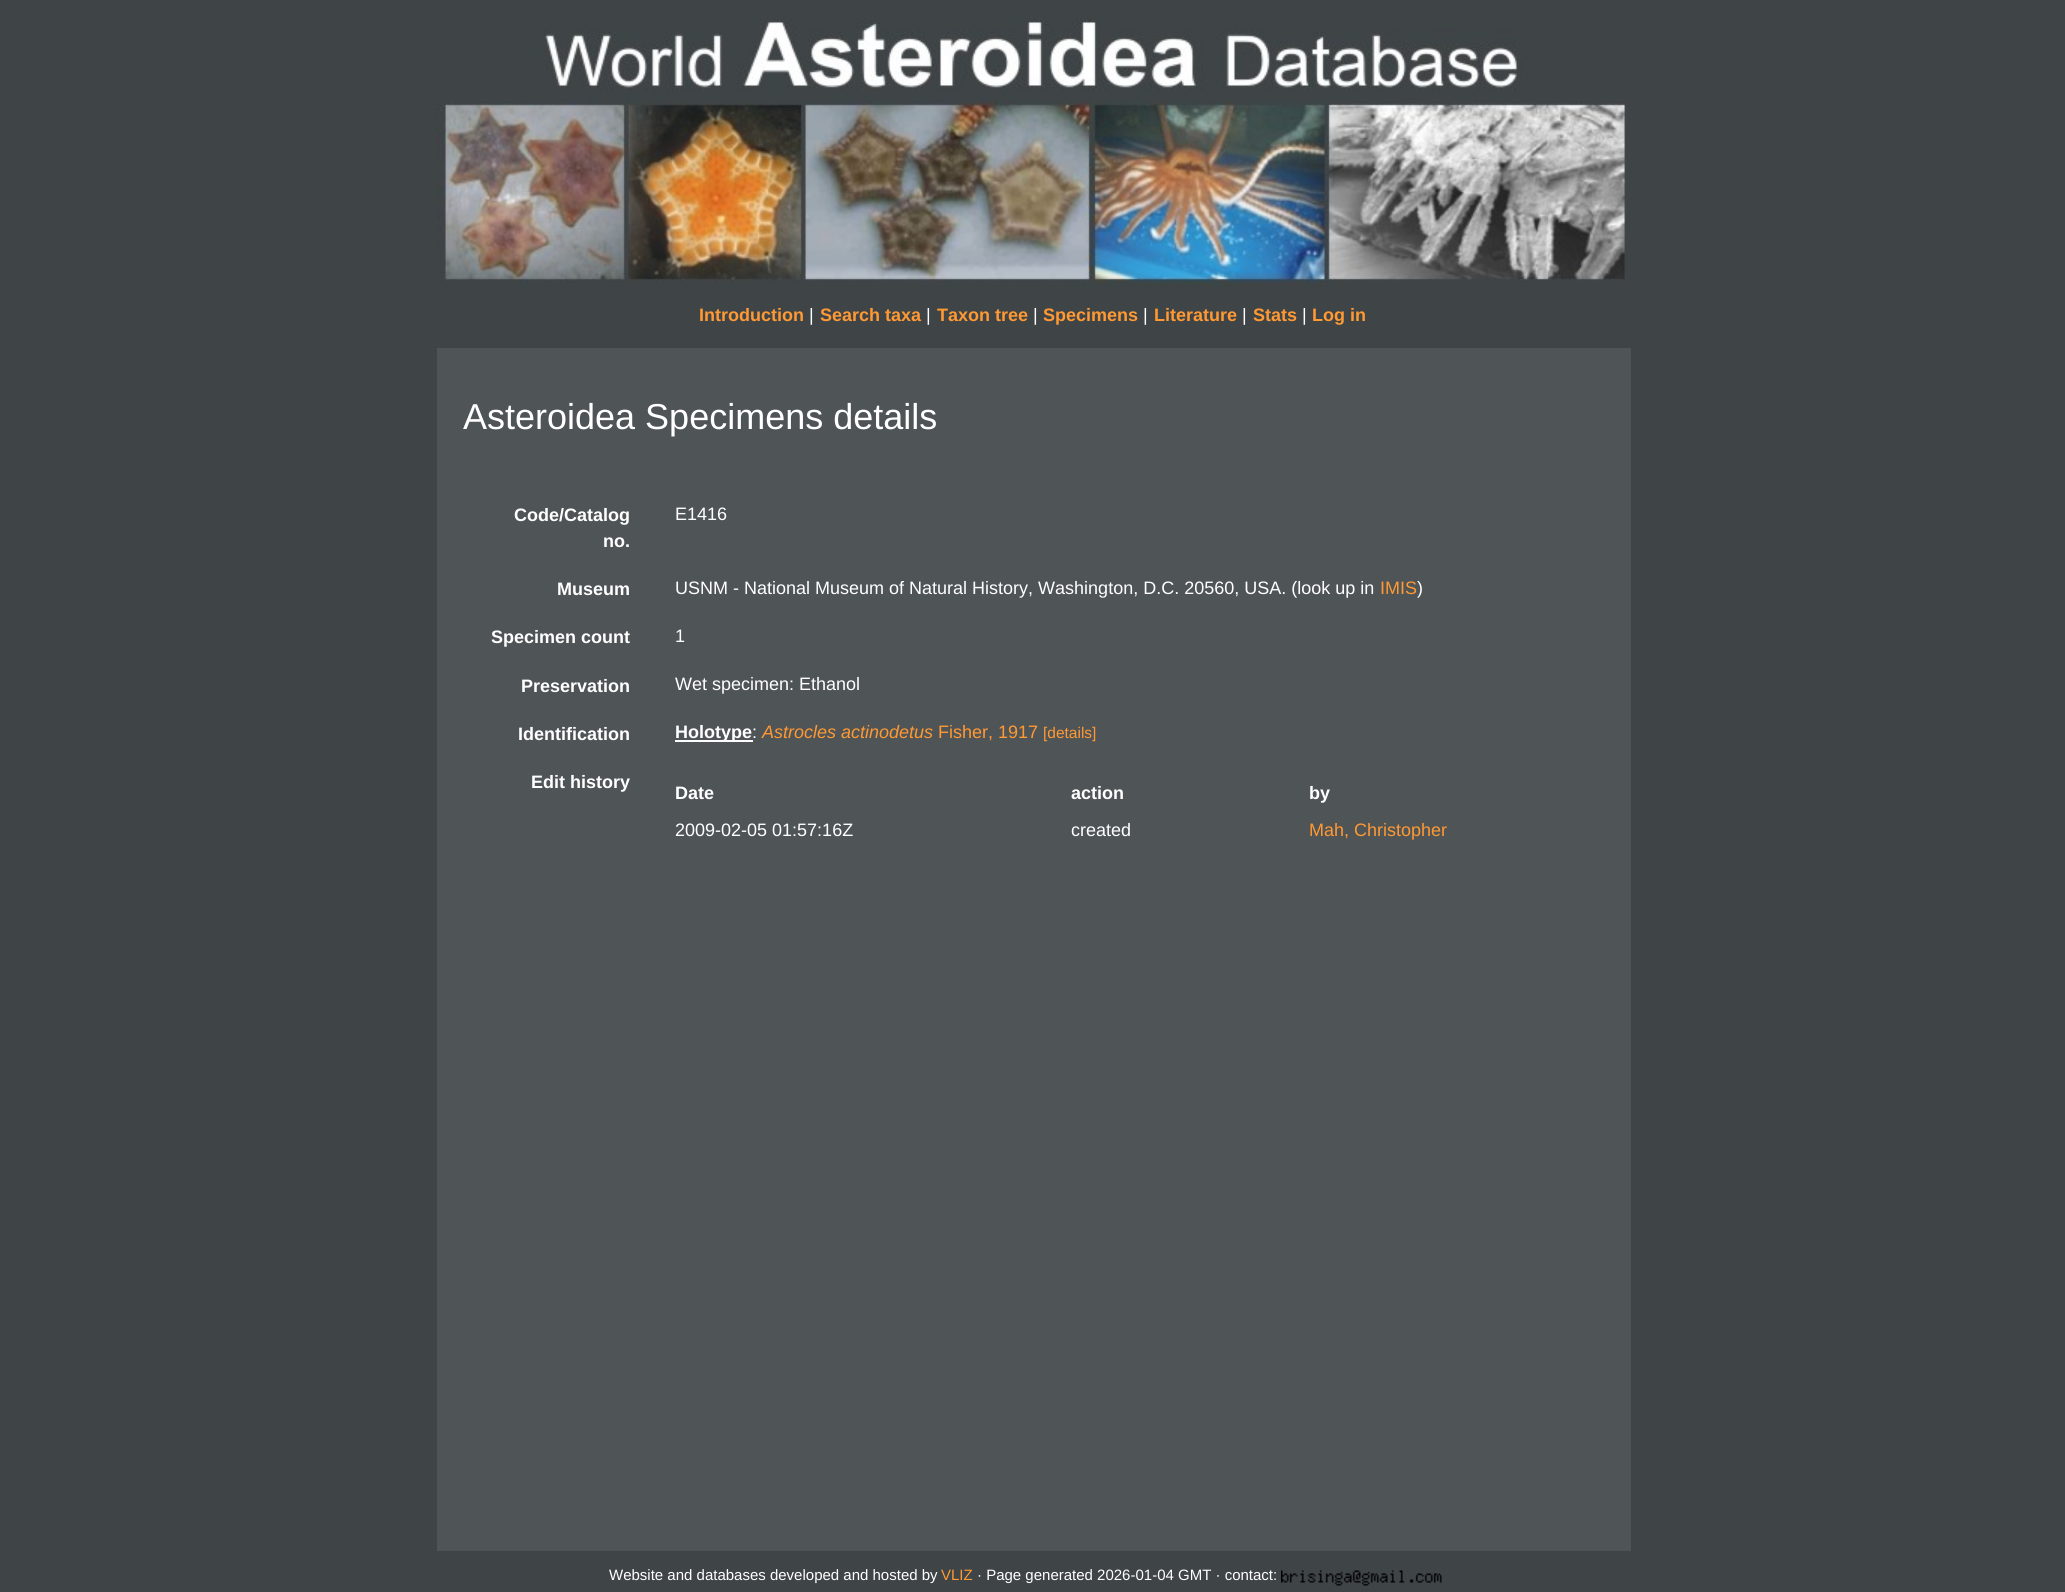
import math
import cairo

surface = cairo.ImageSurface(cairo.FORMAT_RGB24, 2065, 1592)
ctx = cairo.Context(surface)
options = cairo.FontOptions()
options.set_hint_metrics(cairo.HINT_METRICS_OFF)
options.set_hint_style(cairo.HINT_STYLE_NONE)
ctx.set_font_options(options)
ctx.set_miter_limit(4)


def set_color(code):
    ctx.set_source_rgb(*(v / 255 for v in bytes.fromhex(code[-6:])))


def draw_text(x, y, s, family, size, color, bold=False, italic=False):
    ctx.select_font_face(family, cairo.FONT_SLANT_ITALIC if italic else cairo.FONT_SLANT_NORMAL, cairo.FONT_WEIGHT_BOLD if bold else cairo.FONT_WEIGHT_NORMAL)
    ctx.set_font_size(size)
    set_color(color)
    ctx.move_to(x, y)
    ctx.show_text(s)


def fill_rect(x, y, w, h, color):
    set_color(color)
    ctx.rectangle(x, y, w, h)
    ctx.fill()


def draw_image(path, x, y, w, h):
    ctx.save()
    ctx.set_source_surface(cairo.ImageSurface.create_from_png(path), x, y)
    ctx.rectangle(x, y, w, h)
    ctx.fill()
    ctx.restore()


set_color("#3f4447")
ctx.paint()
draw_image("assets/img1.png", 436, 18, 1191, 269)
draw_text(699, 321, "Introduction", "Liberation Sans", 18, "#ff9933", bold=True)
draw_text(809, 321, "|", "Liberation Sans", 18, "#ffffff")
draw_text(820, 321, "Search taxa", "Liberation Sans", 18, "#ff9933", bold=True)
draw_text(926, 321, "|", "Liberation Sans", 18, "#ffffff")
draw_text(937, 321, "Taxon tree", "Liberation Sans", 18, "#ff9933", bold=True)
draw_text(1033, 321, "|", "Liberation Sans", 18, "#ffffff")
draw_text(1043, 321, "Specimens", "Liberation Sans", 18, "#ff9933", bold=True)
draw_text(1143, 321, "|", "Liberation Sans", 18, "#ffffff")
draw_text(1154, 321, "Literature", "Liberation Sans", 18, "#ff9933", bold=True)
draw_text(1242, 321, "|", "Liberation Sans", 18, "#ffffff")
draw_text(1253, 321, "Stats", "Liberation Sans", 18, "#ff9933", bold=True)
draw_text(1302, 321, "|", "Liberation Sans", 18, "#ffffff")
draw_text(1312, 321, "Log in", "Liberation Sans", 18, "#ff9933", bold=True)
fill_rect(437, 348, 1194, 1203, "#4f5457")
draw_text(463, 429, "Asteroidea Specimens details", "Liberation Sans", 36, "#ffffff")
draw_text(514, 521, "Code/Catalog", "Liberation Sans", 18, "#ffffff", bold=True)
draw_text(603, 547, "no.", "Liberation Sans", 18, "#ffffff", bold=True)
draw_text(675, 520, "E1416", "Liberation Sans", 18, "#ffffff")
draw_text(557, 595, "Museum", "Liberation Sans", 18, "#ffffff", bold=True)
draw_text(675, 594, "USNM - National Museum of Natural History, Washington, D.C. 20560, USA. (look up in", "Liberation Sans", 18, "#ffffff")
draw_text(1380, 594, "IMIS", "Liberation Sans", 18, "#ff9933")
draw_text(1417, 594, ")", "Liberation Sans", 18, "#ffffff")
draw_text(491, 643, "Specimen count", "Liberation Sans", 18, "#ffffff", bold=True)
draw_text(675, 642, "1", "Liberation Sans", 18, "#ffffff")
draw_text(521, 692, "Preservation", "Liberation Sans", 18, "#ffffff", bold=True)
draw_text(675, 690, "Wet specimen: Ethanol", "Liberation Sans", 18, "#ffffff")
draw_text(518, 740, "Identification", "Liberation Sans", 18, "#ffffff", bold=True)
fill_rect(675, 740, 78, 2, "#ffffff")
draw_text(675, 738, "Holotype", "Liberation Sans", 18, "#ffffff", bold=True)
draw_text(752, 738, ":", "Liberation Sans", 18, "#ffffff")
draw_text(762, 738, "Astrocles actinodetus", "Liberation Sans", 18, "#ff9933", italic=True)
draw_text(938, 738, "Fisher, 1917", "Liberation Sans", 18, "#ff9933")
draw_text(1043, 738, "[details]", "Liberation Sans", 15.5, "#ff9933")
draw_text(531, 788, "Edit history", "Liberation Sans", 18, "#ffffff", bold=True)
draw_text(675, 799, "Date", "Liberation Sans", 18, "#ffffff", bold=True)
draw_text(1071, 799, "action", "Liberation Sans", 18, "#ffffff", bold=True)
draw_text(1309, 799, "by", "Liberation Sans", 18, "#ffffff", bold=True)
draw_text(675, 836, "2009-02-05 01:57:16Z", "Liberation Sans", 18, "#ffffff")
draw_text(1071, 836, "created", "Liberation Sans", 18, "#ffffff")
draw_text(1309, 836, "Mah, Christopher", "Liberation Sans", 18, "#ff9933")
draw_text(609, 1580, "Website and databases developed and hosted by", "Liberation Sans", 15, "#ffffff")
draw_text(941, 1580, "VLIZ", "Liberation Sans", 15, "#ff9933")
draw_text(977, 1580, "· Page generated 2026-01-04 GMT · contact:", "Liberation Sans", 15, "#ffffff")
draw_image("assets/img2.png", 1281, 1570, 161, 16)
surface.write_to_png("output.png")
